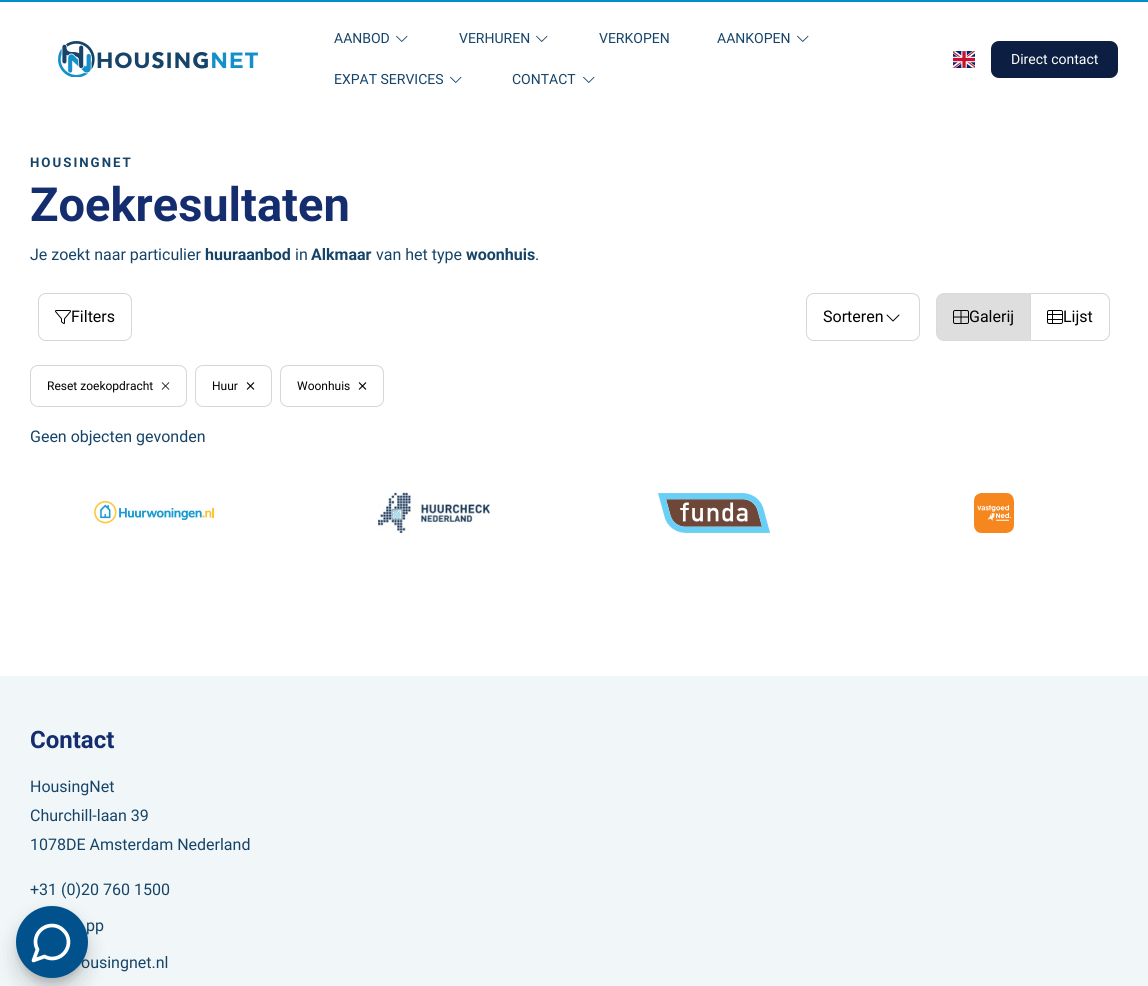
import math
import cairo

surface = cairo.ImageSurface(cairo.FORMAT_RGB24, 1148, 986)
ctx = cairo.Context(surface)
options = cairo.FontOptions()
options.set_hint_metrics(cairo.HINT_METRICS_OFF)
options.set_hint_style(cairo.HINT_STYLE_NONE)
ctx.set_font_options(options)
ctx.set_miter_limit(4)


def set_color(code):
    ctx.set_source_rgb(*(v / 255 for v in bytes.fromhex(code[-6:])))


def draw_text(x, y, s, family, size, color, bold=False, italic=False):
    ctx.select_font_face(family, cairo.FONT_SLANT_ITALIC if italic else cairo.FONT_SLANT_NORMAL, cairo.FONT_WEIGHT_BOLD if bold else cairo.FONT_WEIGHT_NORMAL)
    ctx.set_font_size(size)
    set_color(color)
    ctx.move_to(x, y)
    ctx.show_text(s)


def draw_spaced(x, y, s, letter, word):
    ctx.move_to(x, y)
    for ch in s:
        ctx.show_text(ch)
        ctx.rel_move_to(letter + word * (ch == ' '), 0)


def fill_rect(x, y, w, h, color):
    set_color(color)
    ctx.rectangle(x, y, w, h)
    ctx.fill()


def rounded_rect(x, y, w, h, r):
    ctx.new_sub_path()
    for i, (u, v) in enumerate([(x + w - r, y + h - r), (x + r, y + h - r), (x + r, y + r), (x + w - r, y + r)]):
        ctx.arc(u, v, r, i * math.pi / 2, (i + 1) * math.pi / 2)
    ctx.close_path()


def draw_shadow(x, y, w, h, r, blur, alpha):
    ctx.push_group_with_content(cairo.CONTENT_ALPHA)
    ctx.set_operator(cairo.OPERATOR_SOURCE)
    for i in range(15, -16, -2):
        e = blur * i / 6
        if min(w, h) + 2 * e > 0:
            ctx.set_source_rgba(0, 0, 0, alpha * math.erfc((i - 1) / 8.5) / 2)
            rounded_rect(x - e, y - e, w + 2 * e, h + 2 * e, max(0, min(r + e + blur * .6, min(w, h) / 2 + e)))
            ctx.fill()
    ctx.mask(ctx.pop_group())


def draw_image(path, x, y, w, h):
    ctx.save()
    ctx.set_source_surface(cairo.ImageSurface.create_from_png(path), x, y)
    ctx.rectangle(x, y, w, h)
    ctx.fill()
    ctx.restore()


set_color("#ffffff")
ctx.paint()
fill_rect(0, 0, 1148, 2, "#008fcb")
draw_image("assets/img1.png", 58, 41, 200, 36)
draw_text(334, 43, "AANBOD", "Roboto", 14, "#164469")
draw_image("assets/img2.png", 396, 35, 12, 7)
draw_text(459, 43, "VERHUREN", "Roboto", 14, "#164469")
draw_image("assets/img2.png", 536, 35, 12, 7)
draw_text(599, 43, "VERKOPEN", "Roboto", 14, "#164469")
draw_text(717, 43, "AANKOPEN", "Roboto", 14, "#164469")
draw_image("assets/img2.png", 797, 35, 12, 7)
draw_text(334, 84, "EXPAT SERVICES", "Roboto", 14, "#164469")
draw_image("assets/img2.png", 450, 76, 12, 7)
draw_text(512, 84, "CONTACT", "Roboto", 14, "#164469")
draw_image("assets/img2.png", 583, 76, 12, 7)
draw_image("assets/img3.png", 953, 51, 22, 17)
set_color("#0c1f42")
rounded_rect(991, 41, 127, 37, 8)
ctx.fill()
draw_text(1011, 64, "Direct contact", "Roboto", 14, "#ffffff")
ctx.select_font_face("Roboto", cairo.FONT_SLANT_NORMAL, cairo.FONT_WEIGHT_BOLD)
ctx.set_font_size(13.25)
set_color("#164469")
draw_spaced(30, 167, "HOUSINGNET", 2, 0)
draw_text(30, 221, "Zoekresultaten", "Roboto", 47, "#142d6f", bold=True)
draw_text(30, 260, "Je zoekt naar particulier", "Roboto", 16, "#164469")
draw_text(205, 260, "huuraanbod", "Roboto", 16, "#164469", bold=True)
draw_text(295, 260, "in", "Roboto", 16, "#164469")
draw_text(311, 260, "Alkmaar", "Roboto", 16, "#164469", bold=True)
draw_text(376, 260, "van het type", "Roboto", 16, "#164469")
draw_text(466, 260, "woonhuis", "Roboto", 16, "#164469", bold=True)
draw_text(535, 260, ".", "Roboto", 16, "#164469")
rounded_rect(38.5, 293.5, 93, 47, 7.5)
set_color("#d6d6d6")
ctx.set_line_width(1)
ctx.stroke()
draw_image("assets/img4.png", 55, 310, 16, 14)
draw_text(71, 322, "Filters", "Roboto", 16, "#000000")
rounded_rect(806.5, 293.5, 113, 47, 7.5)
set_color("#d6d6d6")
ctx.stroke()
draw_text(823, 322, "Sorteren", "Roboto", 16, "#000000")
draw_image("assets/img5.png", 886, 314, 14, 8)
ctx.new_path()
ctx.move_to(1030.5, 293.5)
ctx.line_to(1102, 293.5)
ctx.curve_to(1106, 293.5, 1109.5, 297, 1109.5, 301)
ctx.line_to(1109.5, 333)
ctx.curve_to(1109.5, 337, 1106, 340.5, 1102, 340.5)
ctx.line_to(1030.5, 340.5)
ctx.close_path()
set_color("#d6d6d6")
ctx.stroke()
set_color("#dedede")
ctx.new_path()
ctx.move_to(944, 293.5)
ctx.line_to(1030.5, 293.5)
ctx.line_to(1030.5, 340.5)
ctx.line_to(944, 340.5)
ctx.curve_to(940, 340.5, 936.5, 337, 936.5, 333)
ctx.line_to(936.5, 301)
ctx.curve_to(936.5, 297, 940, 293.5, 944, 293.5)
ctx.close_path()
ctx.fill_preserve()
set_color("#dadada")
ctx.stroke()
draw_image("assets/img6.png", 953, 310, 16, 14)
draw_text(969, 322, "Galerij", "Roboto", 16, "#000000")
draw_image("assets/img7.png", 1047, 310, 16, 14)
draw_text(1063, 322, "Lijst", "Roboto", 16, "#000000")
rounded_rect(30.5, 365.5, 156, 41, 7.5)
set_color("#d6d6d6")
ctx.stroke()
draw_text(47, 390, "Reset zoekopdracht", "Roboto", 12, "#000000")
draw_image("assets/img8.png", 161, 382, 9, 8)
rounded_rect(195.5, 365.5, 76, 41, 7.5)
set_color("#d6d6d6")
ctx.stroke()
draw_text(212, 390, "Huur", "Roboto", 12, "#000000")
draw_image("assets/img9.png", 246, 382, 9, 8)
rounded_rect(280.5, 365.5, 103, 41, 7.5)
set_color("#d6d6d6")
ctx.stroke()
draw_text(297, 390, "Woonhuis", "Roboto", 12, "#000000")
draw_image("assets/img9.png", 358, 382, 9, 8)
draw_text(30, 442, "Geen objecten gevonden", "Roboto", 16, "#164469")
draw_image("assets/img10.png", 94, 501, 120, 23)
draw_image("assets/img11.png", 378, 492, 112, 41)
draw_image("assets/img12.png", 658, 493, 112, 40)
draw_image("assets/img13.png", 974, 493, 40, 40)
fill_rect(0, 676, 1148, 310, "#f1f7f9")
draw_text(30, 748, "Contact", "Roboto", 24, "#142d6f", bold=True)
draw_text(30, 792, "HousingNet", "Roboto", 16, "#164469")
draw_text(30, 821, "Churchill-laan 39", "Roboto", 16, "#164469")
draw_text(30, 850, "1078DE Amsterdam Nederland", "Roboto", 16, "#164469")
draw_text(30, 895, "+31 (0)20 760 1500", "Roboto", 16, "#164469")
draw_text(86, 931, "pp", "Roboto", 16, "#164469")
draw_text(81, 968, "ousingnet.nl", "Roboto", 16, "#164469")
set_color("#000000")
draw_shadow(22, 920, 60, 60, 30, 5, 0.1)
draw_shadow(21, 931, 62, 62, 31, 12.5, 0.1)
draw_shadow(19, 913, 66, 66, 33, 5, 0.1)
draw_shadow(21, 919, 62, 62, 31, 12.5, 0.15)
set_color("#01528c")
ctx.arc(52, 942, 36, 0, 2 * math.pi)
ctx.fill()
ctx.new_path()
ctx.move_to(44.5, 956.5)
ctx.curve_to(51.5, 960.5, 60.5, 958.5, 65.5, 951.5)
ctx.curve_to(70, 945, 69.5, 936, 63.5, 930.5)
ctx.curve_to(58, 924.5, 49, 924, 42.5, 928.5)
ctx.curve_to(35.5, 933.5, 33.5, 942.5, 37.5, 949.5)
ctx.line_to(33.5, 960.5)
ctx.close_path()
set_color("#ffffff")
ctx.set_line_width(3.7)
ctx.set_line_cap(cairo.LINE_CAP_ROUND)
ctx.set_line_join(cairo.LINE_JOIN_ROUND)
ctx.stroke()
surface.write_to_png("output.png")
